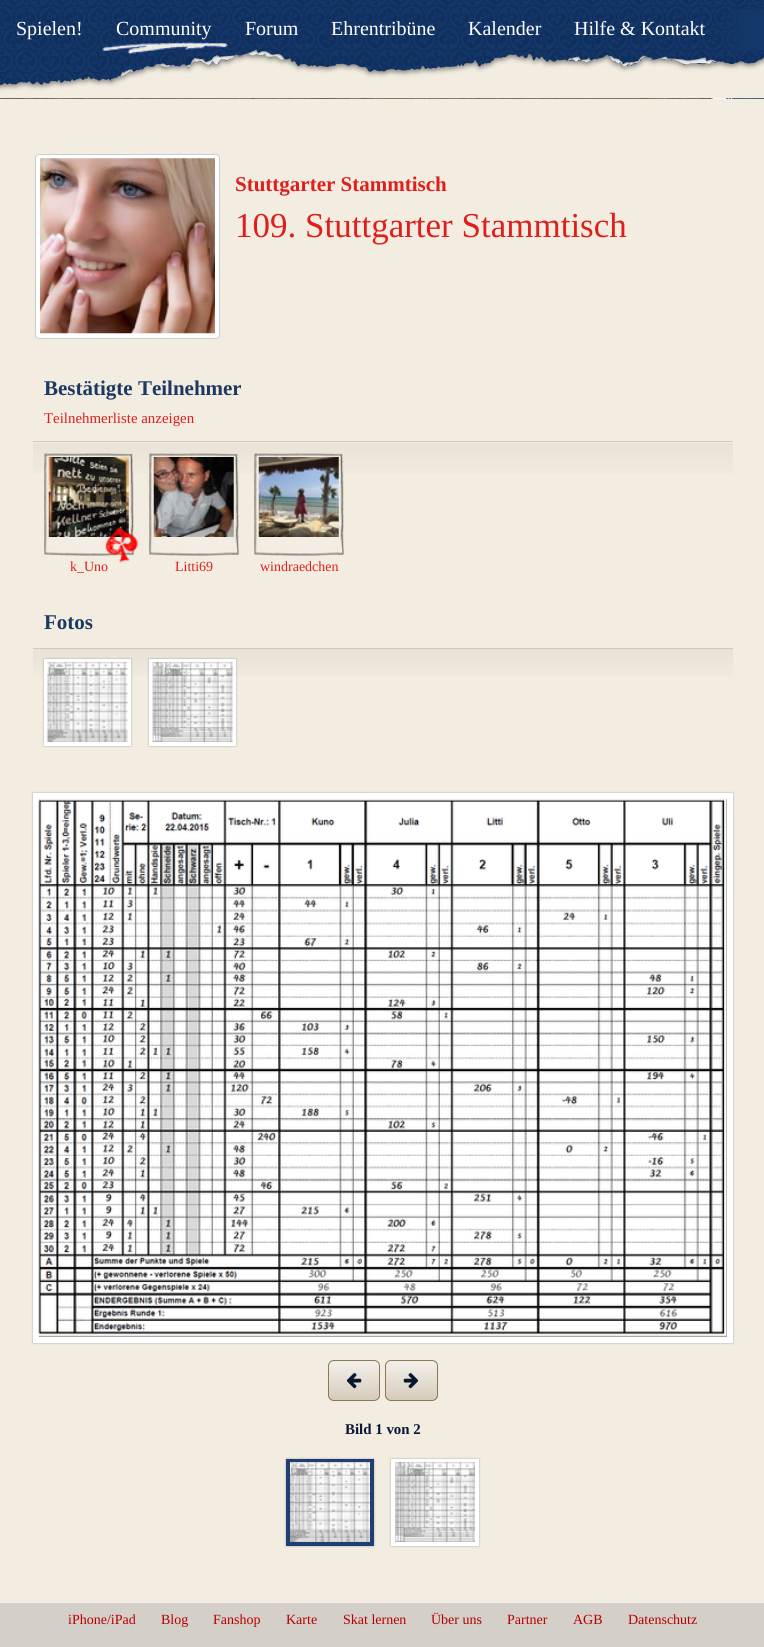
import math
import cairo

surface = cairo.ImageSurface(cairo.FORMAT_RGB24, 764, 1647)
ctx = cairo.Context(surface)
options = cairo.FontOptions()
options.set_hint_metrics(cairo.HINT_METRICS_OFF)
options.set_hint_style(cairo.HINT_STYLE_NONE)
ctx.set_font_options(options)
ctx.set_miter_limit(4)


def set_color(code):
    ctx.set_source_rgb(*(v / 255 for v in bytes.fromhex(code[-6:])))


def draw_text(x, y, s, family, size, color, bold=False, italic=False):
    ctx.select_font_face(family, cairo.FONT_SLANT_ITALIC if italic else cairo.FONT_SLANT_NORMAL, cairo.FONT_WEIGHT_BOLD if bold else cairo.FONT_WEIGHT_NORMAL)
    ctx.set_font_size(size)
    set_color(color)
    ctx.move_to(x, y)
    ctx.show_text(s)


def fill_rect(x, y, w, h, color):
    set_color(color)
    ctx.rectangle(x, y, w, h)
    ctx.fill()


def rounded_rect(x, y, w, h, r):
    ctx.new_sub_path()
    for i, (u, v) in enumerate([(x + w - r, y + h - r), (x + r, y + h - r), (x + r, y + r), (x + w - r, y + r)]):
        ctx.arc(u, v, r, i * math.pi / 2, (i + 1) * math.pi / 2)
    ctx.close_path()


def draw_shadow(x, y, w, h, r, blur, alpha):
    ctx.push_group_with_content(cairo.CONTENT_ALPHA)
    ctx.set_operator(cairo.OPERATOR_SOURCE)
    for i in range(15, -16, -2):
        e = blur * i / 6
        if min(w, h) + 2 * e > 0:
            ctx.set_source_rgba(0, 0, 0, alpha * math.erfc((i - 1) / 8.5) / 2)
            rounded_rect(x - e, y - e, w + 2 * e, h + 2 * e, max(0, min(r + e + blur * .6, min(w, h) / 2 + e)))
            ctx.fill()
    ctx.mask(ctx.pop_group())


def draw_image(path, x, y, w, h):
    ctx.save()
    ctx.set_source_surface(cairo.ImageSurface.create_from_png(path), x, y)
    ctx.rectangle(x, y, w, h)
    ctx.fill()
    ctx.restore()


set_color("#ffffff")
ctx.paint()
draw_image("assets/img1.png", 0, 98, 764, 1)
draw_image("assets/img2.png", 0, 0, 764, 99)
draw_text(16, 35, "Spielen!", "Liberation Serif", 20, "#ffffff")
draw_image("assets/img3.png", 102, 41, 126, 13)
draw_text(116, 35, "Community", "Liberation Serif", 20, "#ffffff")
draw_text(245, 35, "Forum", "Liberation Serif", 20, "#ffffff")
draw_text(331, 35, "Ehrentribüne", "Liberation Serif", 20, "#ffffff")
draw_text(468, 35, "Kalender", "Liberation Serif", 20, "#ffffff")
draw_text(574, 35, "Hilfe & Kontakt", "Liberation Serif", 20, "#ffffff")
fill_rect(0, 99, 764, 1504, "#f2ece1")
set_color("#ffffff")
rounded_rect(35, 154, 185, 185, 4)
ctx.fill()
rounded_rect(35.5, 154.5, 184, 184, 3.5)
ctx.set_source_rgba(0, 0, 0, 0.2)
ctx.set_line_width(1)
ctx.stroke()
draw_image("assets/img4.png", 40, 158, 175, 176)
draw_text(235, 191, "Stuttgarter Stammtisch", "Liberation Serif", 21, "#de1f1c", bold=True)
draw_text(235, 237, "109. Stuttgarter Stammtisch", "Liberation Serif", 35, "#de1f1c")
fill_rect(33, 441, 700, 1, "#d3c9b6")
draw_text(44, 395, "Bestätigte Teilnehmer", "Liberation Serif", 21, "#1d3961", bold=True)
draw_text(44, 423, "Teilnehmerliste anzeigen", "Liberation Serif", 14.9, "#de1f1c")
gradient = cairo.LinearGradient(383, 442, 383, 585)
gradient.add_color_stop_rgba(0, 0.91, 0.886, 0.843, 1)
gradient.add_color_stop_rgba(0.3, 0.949, 0.925, 0.882, 1)
ctx.set_source(gradient)
ctx.rectangle(33, 443, 700, 31)
ctx.fill()
draw_image("assets/img5.png", 44, 453, 90, 103)
draw_image("assets/img6.png", 48, 457, 81, 80)
draw_text(70, 571, "k_Uno", "Liberation Serif", 14, "#de1f1c")
draw_image("assets/img7.png", 105, 527, 34, 36)
draw_image("assets/img5.png", 149, 453, 90, 103)
draw_image("assets/img8.png", 153, 457, 81, 80)
draw_text(175, 571, "Litti69", "Liberation Serif", 14, "#de1f1c")
draw_image("assets/img5.png", 254, 453, 90, 103)
draw_image("assets/img9.png", 258, 457, 81, 80)
draw_text(260, 571, "windraedchen", "Liberation Serif", 14, "#de1f1c")
fill_rect(33, 648, 700, 1, "#d3c9b6")
draw_text(44, 629, "Fotos", "Liberation Serif", 21, "#1d3961", bold=True)
gradient = cairo.LinearGradient(383, 649, 383, 775)
gradient.add_color_stop_rgba(0, 0.91, 0.886, 0.843, 1)
gradient.add_color_stop_rgba(0.3, 0.949, 0.925, 0.882, 1)
ctx.set_source(gradient)
ctx.rectangle(33, 649, 700, 28)
ctx.fill()
set_color("#000000")
draw_shadow(44, 659, 87, 87, 0, 1, 0.3)
ctx.rectangle(46, 661, 83, 83)
set_color("#ffffff")
ctx.set_line_width(4)
ctx.stroke()
draw_image("assets/img10.png", 47, 662, 81, 80)
set_color("#000000")
draw_shadow(149, 659, 87, 87, 0, 1, 0.3)
ctx.rectangle(151, 661, 83, 83)
set_color("#ffffff")
ctx.stroke()
draw_image("assets/img11.png", 152, 662, 81, 80)
set_color("#000000")
draw_shadow(33, 793, 700, 550, 0, 1, 0.3)
ctx.rectangle(36, 796, 694, 544)
set_color("#ffffff")
ctx.set_line_width(6)
ctx.stroke()
draw_image("assets/img12.png", 38, 799, 689, 537)
ctx.save()
rounded_rect(328, 1360, 52, 41, 6)
ctx.clip()
gradient = cairo.LinearGradient(354, 1361, 354, 1400)
gradient.add_color_stop_rgba(0, 0.953, 0.941, 0.922, 1)
gradient.add_color_stop_rgba(1, 0.839, 0.8, 0.733, 1)
ctx.set_source(gradient)
ctx.rectangle(328, 1361, 52, 39)
ctx.fill()
ctx.restore()
rounded_rect(328.5, 1360.5, 51, 40, 5.5)
set_color("#8c7653")
ctx.set_line_width(1)
ctx.stroke()
draw_image("assets/img13.png", 346, 1373, 16, 16)
ctx.save()
rounded_rect(385, 1360, 53, 41, 6)
ctx.clip()
gradient = cairo.LinearGradient(411, 1361, 411, 1400)
gradient.add_color_stop_rgba(0, 0.953, 0.941, 0.922, 1)
gradient.add_color_stop_rgba(1, 0.839, 0.8, 0.733, 1)
ctx.set_source(gradient)
ctx.rectangle(385, 1361, 53, 39)
ctx.fill()
ctx.restore()
rounded_rect(385.5, 1360.5, 52, 40, 5.5)
ctx.stroke()
draw_image("assets/img14.png", 403, 1373, 16, 16)
draw_text(345, 1434, "Bild 1 von 2", "Liberation Serif", 14.9, "#081731", bold=True)
set_color("#000000")
draw_shadow(286, 1459, 88, 87, 0, 1, 0.3)
ctx.rectangle(288, 1461, 84, 83)
set_color("#1f3e74")
ctx.set_line_width(4)
ctx.stroke()
draw_image("assets/img15.png", 290, 1462, 80, 80)
set_color("#000000")
draw_shadow(391, 1459, 88, 87, 0, 1, 0.3)
ctx.rectangle(393, 1461, 84, 83)
set_color("#ffffff")
ctx.stroke()
draw_image("assets/img16.png", 395, 1462, 80, 80)
fill_rect(0, 1603, 764, 44, "#d4cfc8")
draw_text(68, 1624, "iPhone/iPad", "Liberation Serif", 14, "#b60000")
draw_text(161, 1624, "Blog", "Liberation Serif", 14, "#b60000")
draw_text(213, 1624, "Fanshop", "Liberation Serif", 14, "#b60000")
draw_text(286, 1624, "Karte", "Liberation Serif", 14, "#b60000")
draw_text(343, 1624, "Skat lernen", "Liberation Serif", 14, "#b60000")
draw_text(431, 1624, "Über uns", "Liberation Serif", 14, "#b60000")
draw_text(507, 1624, "Partner", "Liberation Serif", 14, "#b60000")
draw_text(573, 1624, "AGB", "Liberation Serif", 14, "#b60000")
draw_text(628, 1624, "Datenschutz", "Liberation Serif", 14, "#b60000")
surface.write_to_png("output.png")
